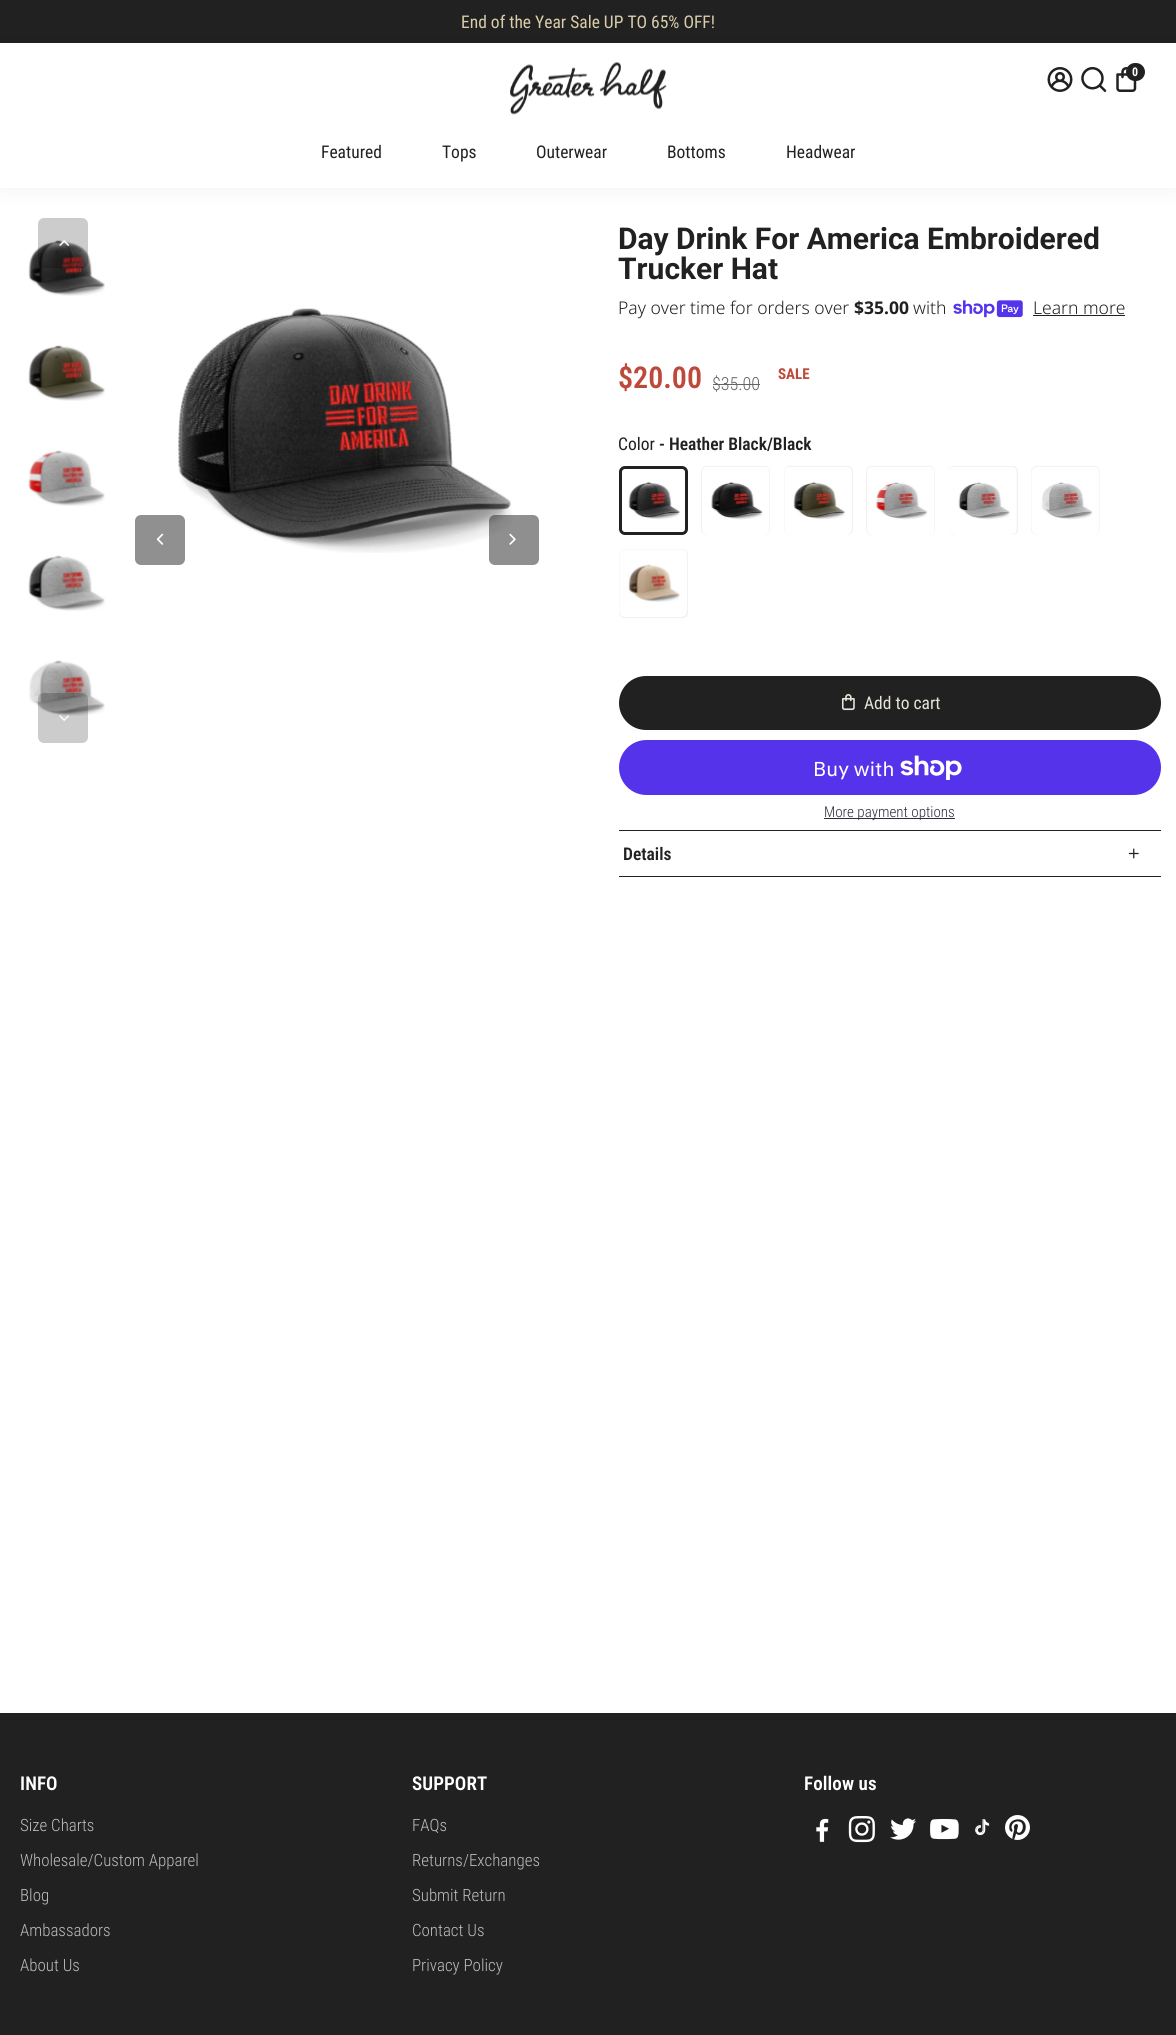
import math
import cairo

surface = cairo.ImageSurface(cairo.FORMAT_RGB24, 1176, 2035)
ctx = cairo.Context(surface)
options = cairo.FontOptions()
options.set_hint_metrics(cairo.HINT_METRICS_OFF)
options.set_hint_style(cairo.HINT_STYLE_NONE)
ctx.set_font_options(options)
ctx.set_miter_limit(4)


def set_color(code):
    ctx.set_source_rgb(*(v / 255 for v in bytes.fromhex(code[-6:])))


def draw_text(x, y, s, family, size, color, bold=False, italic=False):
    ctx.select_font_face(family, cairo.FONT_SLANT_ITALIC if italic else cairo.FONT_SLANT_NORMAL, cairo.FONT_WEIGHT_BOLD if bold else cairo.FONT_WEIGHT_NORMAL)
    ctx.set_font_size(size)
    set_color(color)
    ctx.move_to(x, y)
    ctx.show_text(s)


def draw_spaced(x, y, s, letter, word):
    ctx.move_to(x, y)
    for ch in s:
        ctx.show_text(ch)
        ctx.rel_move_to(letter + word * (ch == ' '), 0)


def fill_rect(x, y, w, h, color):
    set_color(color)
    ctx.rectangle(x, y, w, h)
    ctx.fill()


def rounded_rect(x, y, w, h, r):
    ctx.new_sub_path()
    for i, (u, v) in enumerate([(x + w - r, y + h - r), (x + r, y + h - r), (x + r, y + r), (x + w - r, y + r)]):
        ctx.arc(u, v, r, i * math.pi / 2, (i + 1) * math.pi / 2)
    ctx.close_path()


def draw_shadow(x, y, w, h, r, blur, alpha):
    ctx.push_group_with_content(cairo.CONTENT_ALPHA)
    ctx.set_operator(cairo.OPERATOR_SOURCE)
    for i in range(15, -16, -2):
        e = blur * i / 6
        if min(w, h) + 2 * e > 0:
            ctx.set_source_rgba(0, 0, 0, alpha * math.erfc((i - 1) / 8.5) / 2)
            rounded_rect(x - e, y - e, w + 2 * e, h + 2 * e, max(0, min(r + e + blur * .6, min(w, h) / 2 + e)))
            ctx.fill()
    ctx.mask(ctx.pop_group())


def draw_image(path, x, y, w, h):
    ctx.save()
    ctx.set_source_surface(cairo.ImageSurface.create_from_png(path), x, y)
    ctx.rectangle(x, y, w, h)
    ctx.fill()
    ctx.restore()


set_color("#ffffff")
ctx.paint()
fill_rect(0, 0, 1176, 43, "#212121")
draw_text(461, 28, "End of the Year Sale UP TO 65% OFF!", "Roboto Condensed", 17.5, "#dacdab")
draw_image("assets/img6.png", 28, 240, 77, 56)
ctx.set_source_rgba(0, 0, 0, 0.2)
rounded_rect(38, 218, 50, 50, 6)
ctx.fill()
set_color("#000000")
draw_shadow(0, 43, 1176, 145, 0, 12.5, 0.06)
fill_rect(0, 43, 1176, 145, "#ffffff")
draw_image("assets/img1.png", 510, 62, 157, 53)
draw_image("assets/img2.png", 1047, 67, 26, 25)
draw_image("assets/img3.png", 1081, 67, 26, 25)
draw_image("assets/img4.png", 1116, 67, 21, 25)
set_color("#212121")
rounded_rect(1126, 63, 19, 18, 9)
ctx.fill()
draw_text(1132, 76, "0", "Roboto Condensed", 12, "#ffffff", bold=True)
draw_text(321, 158, "Featured", "Roboto Condensed", 17.5, "#212121")
draw_text(442, 158, "Tops", "Roboto Condensed", 17.5, "#212121")
draw_text(536, 158, "Outerwear", "Roboto Condensed", 17.5, "#212121")
draw_text(667, 158, "Bottoms", "Roboto Condensed", 17.5, "#212121")
draw_text(786, 158, "Headwear", "Roboto Condensed", 17.5, "#212121")
draw_image("assets/img5.png", 59, 240, 10, 6)
draw_image("assets/img7.png", 28, 345, 77, 56)
draw_image("assets/img8.png", 28, 450, 77, 56)
draw_image("assets/img9.png", 28, 555, 77, 56)
draw_image("assets/img10.png", 29, 660, 76, 56)
draw_image("assets/img12.png", 178, 308, 335, 245)
set_color("#909090")
rounded_rect(135, 515, 50, 50, 6)
ctx.fill()
draw_image("assets/img11.png", 156, 533, 8, 12)
ctx.set_source_rgba(0.129, 0.129, 0.129, 0.5)
rounded_rect(489, 515, 50, 50, 6)
ctx.fill()
draw_image("assets/img13.png", 509, 533, 7, 12)
ctx.set_source_rgba(0, 0, 0, 0.2)
rounded_rect(38, 693, 50, 50, 6)
ctx.fill()
draw_image("assets/img14.png", 59, 715, 10, 6)
draw_text(618, 249, "Day Drink For America Embroidered", "Roboto", 30, "#212121", bold=True)
draw_text(618, 279, "Trucker Hat", "Roboto", 30, "#212121", bold=True)
draw_text(618, 314, "Pay over time for orders over", "Noto Sans Light", 17.5, "#212121")
draw_text(854, 314, "$35.00", "Noto Sans", 17.5, "#212121", bold=True)
draw_text(913, 314, "with", "Noto Sans Light", 17.5, "#212121")
draw_image("assets/img15.png", 953, 300, 70, 18)
draw_text(1033, 314, "Learn more", "Noto Sans Light", 17.5, "#212121")
fill_rect(1033, 315, 92, 1, "#212121")
draw_text(618, 388, "$20.00", "Roboto Condensed SemiBold", 30, "#be483a")
draw_text(712, 390, "$35.00", "Roboto Condensed Light", 18, "#686363")
fill_rect(713, 384, 47, 1, "#686363")
draw_text(778, 379, "SALE", "Roboto Condensed", 15, "#be483a", bold=True)
draw_text(618, 450, "Color", "Roboto Condensed", 17.5, "#212121")
draw_text(659, 450, "- Heather Black/Black", "Roboto Condensed SemiBold", 17.5, "#212121")
draw_image("assets/img16.png", 619, 466, 69, 69)
rounded_rect(620.5, 467.5, 66, 66, 4.5)
ctx.set_line_width(3)
ctx.stroke()
set_color("#e8e4da")
rounded_rect(701, 466, 69, 69, 6)
ctx.fill()
draw_image("assets/img17.png", 701, 466, 69, 69)
rounded_rect(784, 466, 69, 69, 6)
ctx.fill()
draw_image("assets/img18.png", 784, 466, 69, 69)
rounded_rect(866, 466, 69, 69, 6)
ctx.fill()
draw_image("assets/img19.png", 866, 466, 69, 69)
rounded_rect(949, 466, 69, 69, 6)
ctx.fill()
draw_image("assets/img20.png", 949, 466, 69, 69)
rounded_rect(1031, 466, 69, 69, 6)
ctx.fill()
draw_image("assets/img21.png", 1031, 466, 69, 69)
rounded_rect(619, 549, 69, 69, 6)
ctx.fill()
draw_image("assets/img22.png", 619, 549, 69, 69)
set_color("#212121")
rounded_rect(619, 676, 542, 54, 27)
ctx.fill()
draw_image("assets/img23.png", 841, 694, 14, 17)
draw_text(864, 709, "Add to cart", "Roboto Condensed", 17.5, "#e8e4da")
set_color("#5433eb")
rounded_rect(619, 740, 542, 55, 27.5)
ctx.fill()
draw_text(813, 776, "Buy with", "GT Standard", 20, "#ffffff")
draw_image("assets/img24.png", 900, 755, 62, 25)
fill_rect(824, 818, 131, 1, "#2b2f3d")
draw_text(824, 817, "More payment options", "Roboto Condensed Light", 15, "#2b2f3d")
fill_rect(619, 830, 542, 1, "#212121")
fill_rect(619, 876, 542, 1, "#212121")
draw_text(623, 860, "Details", "Roboto Condensed SemiBold", 17.5, "#212121")
draw_image("assets/img25.png", 1128, 848, 11, 11)
fill_rect(0, 1713, 1176, 322, "#212121")
ctx.set_font_size(19)
set_color("#ffffff")
draw_spaced(20, 1790, "INFO", 0.1, 0)
draw_text(20, 1831, "Size Charts", "Roboto Condensed Light", 16.9, "#bcbcbc")
draw_text(20, 1866, "Wholesale/Custom Apparel", "Roboto Condensed Light", 16.9, "#bcbcbc")
draw_text(20, 1901, "Blog", "Roboto Condensed Light", 16.9, "#bcbcbc")
draw_text(20, 1936, "Ambassadors", "Roboto Condensed Light", 16.9, "#bcbcbc")
draw_text(20, 1971, "About Us", "Roboto Condensed Light", 16.9, "#bcbcbc")
ctx.select_font_face("Roboto Condensed SemiBold")
ctx.set_font_size(19)
set_color("#ffffff")
draw_spaced(412, 1790, "SUPPORT", 0.1, 0)
draw_text(412, 1831, "FAQs", "Roboto Condensed Light", 16.9, "#bcbcbc")
draw_text(412, 1866, "Returns/Exchanges", "Roboto Condensed Light", 16.9, "#bcbcbc")
draw_text(412, 1901, "Submit Return", "Roboto Condensed Light", 16.9, "#bcbcbc")
draw_text(412, 1936, "Contact Us", "Roboto Condensed Light", 16.9, "#bcbcbc")
draw_text(412, 1971, "Privacy Policy", "Roboto Condensed Light", 16.9, "#bcbcbc")
ctx.select_font_face("Roboto Condensed SemiBold")
ctx.set_font_size(19)
set_color("#ffffff")
draw_spaced(804, 1790, "Follow us", 0.1, 0)
draw_image("assets/img26.png", 816, 1818, 13, 24)
draw_image("assets/img27.png", 848, 1816, 27, 27)
draw_image("assets/img28.png", 890, 1818, 26, 22)
draw_image("assets/img29.png", 930, 1819, 29, 21)
draw_image("assets/img30.png", 975, 1819, 15, 17)
draw_image("assets/img31.png", 1005, 1815, 25, 25)
surface.write_to_png("output.png")
